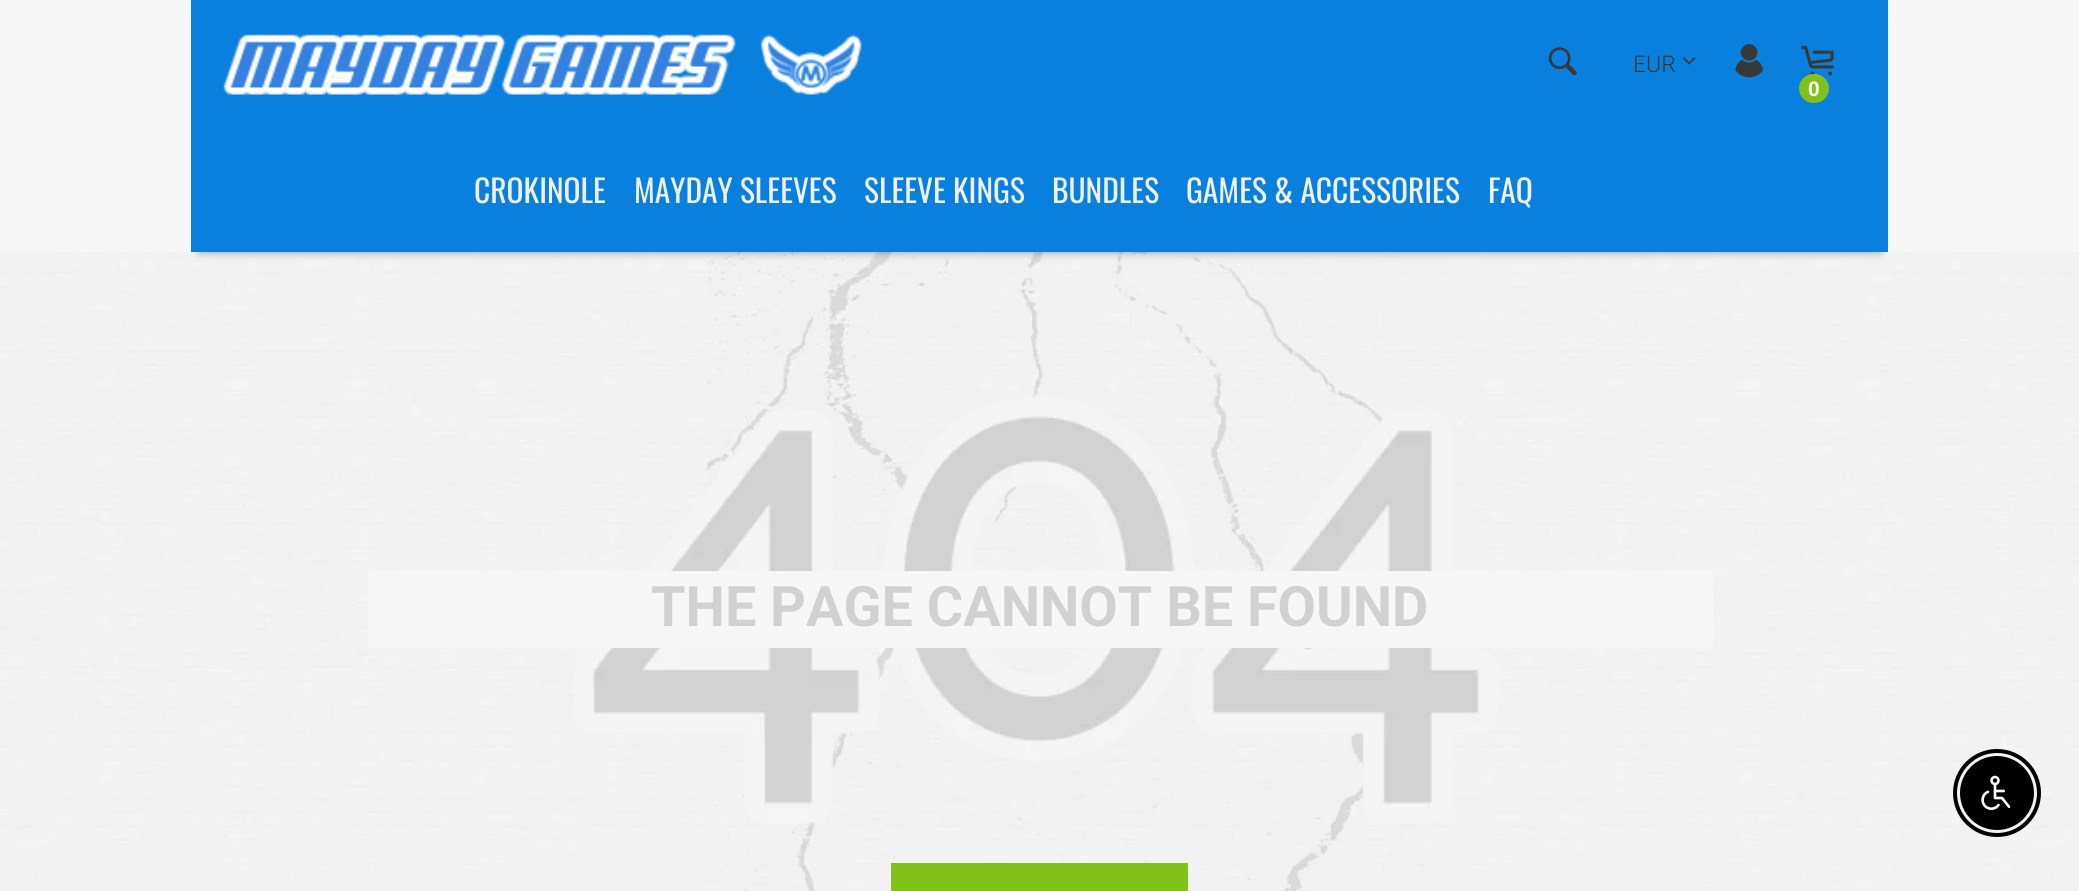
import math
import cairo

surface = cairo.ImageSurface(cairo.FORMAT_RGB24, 2079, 891)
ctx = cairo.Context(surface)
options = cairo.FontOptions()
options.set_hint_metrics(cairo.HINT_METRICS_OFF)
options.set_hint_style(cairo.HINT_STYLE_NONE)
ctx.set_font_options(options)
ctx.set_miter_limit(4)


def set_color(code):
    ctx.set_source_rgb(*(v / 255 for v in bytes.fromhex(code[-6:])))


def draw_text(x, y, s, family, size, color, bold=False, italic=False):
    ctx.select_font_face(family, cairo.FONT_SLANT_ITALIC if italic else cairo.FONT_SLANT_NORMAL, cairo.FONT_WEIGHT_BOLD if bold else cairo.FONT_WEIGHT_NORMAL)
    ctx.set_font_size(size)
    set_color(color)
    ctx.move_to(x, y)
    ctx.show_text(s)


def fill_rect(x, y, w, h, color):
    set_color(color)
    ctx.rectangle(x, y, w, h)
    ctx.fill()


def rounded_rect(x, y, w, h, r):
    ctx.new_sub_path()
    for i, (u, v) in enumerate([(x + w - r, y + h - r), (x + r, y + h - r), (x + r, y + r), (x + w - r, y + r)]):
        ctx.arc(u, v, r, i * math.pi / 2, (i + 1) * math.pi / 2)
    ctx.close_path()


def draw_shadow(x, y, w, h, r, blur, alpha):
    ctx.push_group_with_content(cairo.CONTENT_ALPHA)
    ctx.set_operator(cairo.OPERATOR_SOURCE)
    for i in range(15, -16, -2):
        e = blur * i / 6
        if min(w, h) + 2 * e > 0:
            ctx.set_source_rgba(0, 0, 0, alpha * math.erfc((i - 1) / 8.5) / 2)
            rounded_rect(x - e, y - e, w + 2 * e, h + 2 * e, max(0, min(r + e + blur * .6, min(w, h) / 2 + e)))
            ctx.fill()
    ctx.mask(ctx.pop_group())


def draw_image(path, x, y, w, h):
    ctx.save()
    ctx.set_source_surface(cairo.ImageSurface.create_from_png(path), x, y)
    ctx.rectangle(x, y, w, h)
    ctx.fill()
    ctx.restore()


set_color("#f7f7f7")
ctx.paint()
draw_image("assets/img6.png", 0, 252, 2079, 639)
set_color("#000000")
draw_shadow(200, 18, 1680, 234, 0, 4.5, 0.4)
fill_rect(191, 0, 1697, 252, "#0a80de")
draw_image("assets/img1.png", 223, 34, 639, 61)
draw_image("assets/img2.png", 1548, 47, 29, 29)
draw_text(1633, 72, "EUR", "Roboto Light", 23, "#383838")
draw_image("assets/img3.png", 1682, 57, 14, 8)
draw_image("assets/img4.png", 1735, 44, 28, 34)
draw_image("assets/img5.png", 1801, 45, 33, 31)
set_color("#81c218")
rounded_rect(1799, 74, 30, 29, 14.5)
ctx.fill()
draw_text(1808, 96, "0", "Liberation Sans", 21, "#ffffff", bold=True)
draw_text(474, 203, "CROKINOLE", "Oswald", 31.5, "#f0f0f0")
draw_text(634, 203, "MAYDAY SLEEVES", "Oswald", 31.5, "#f0f0f0")
draw_text(864, 203, "SLEEVE KINGS", "Oswald", 31.5, "#f0f0f0")
draw_text(1052, 203, "BUNDLES", "Oswald", 31.5, "#f0f0f0")
draw_text(1186, 203, "GAMES & ACCESSORIES", "Oswald", 31.5, "#f0f0f0")
draw_text(1488, 203, "FAQ", "Oswald", 31.5, "#f0f0f0")
draw_image("assets/img7.png", 574, 395, 924, 429)
fill_rect(368, 571, 1345, 77, "#f7f7f7")
draw_text(651, 626, "THE PAGE CANNOT BE FOUND", "Roboto", 55.75, "#d1d1d1", bold=True)
fill_rect(891, 863, 297, 28, "#81c218")
ctx.new_path()
ctx.arc(1997, 793, 42, 0, 2 * math.pi)
set_color("#000000")
ctx.set_line_width(4)
ctx.stroke()
ctx.arc(1997, 793, 36, 0, 2 * math.pi)
ctx.fill_preserve()
ctx.set_line_width(2)
ctx.stroke()
draw_image("assets/img8.png", 1981, 775, 30, 35)
surface.write_to_png("output.png")
